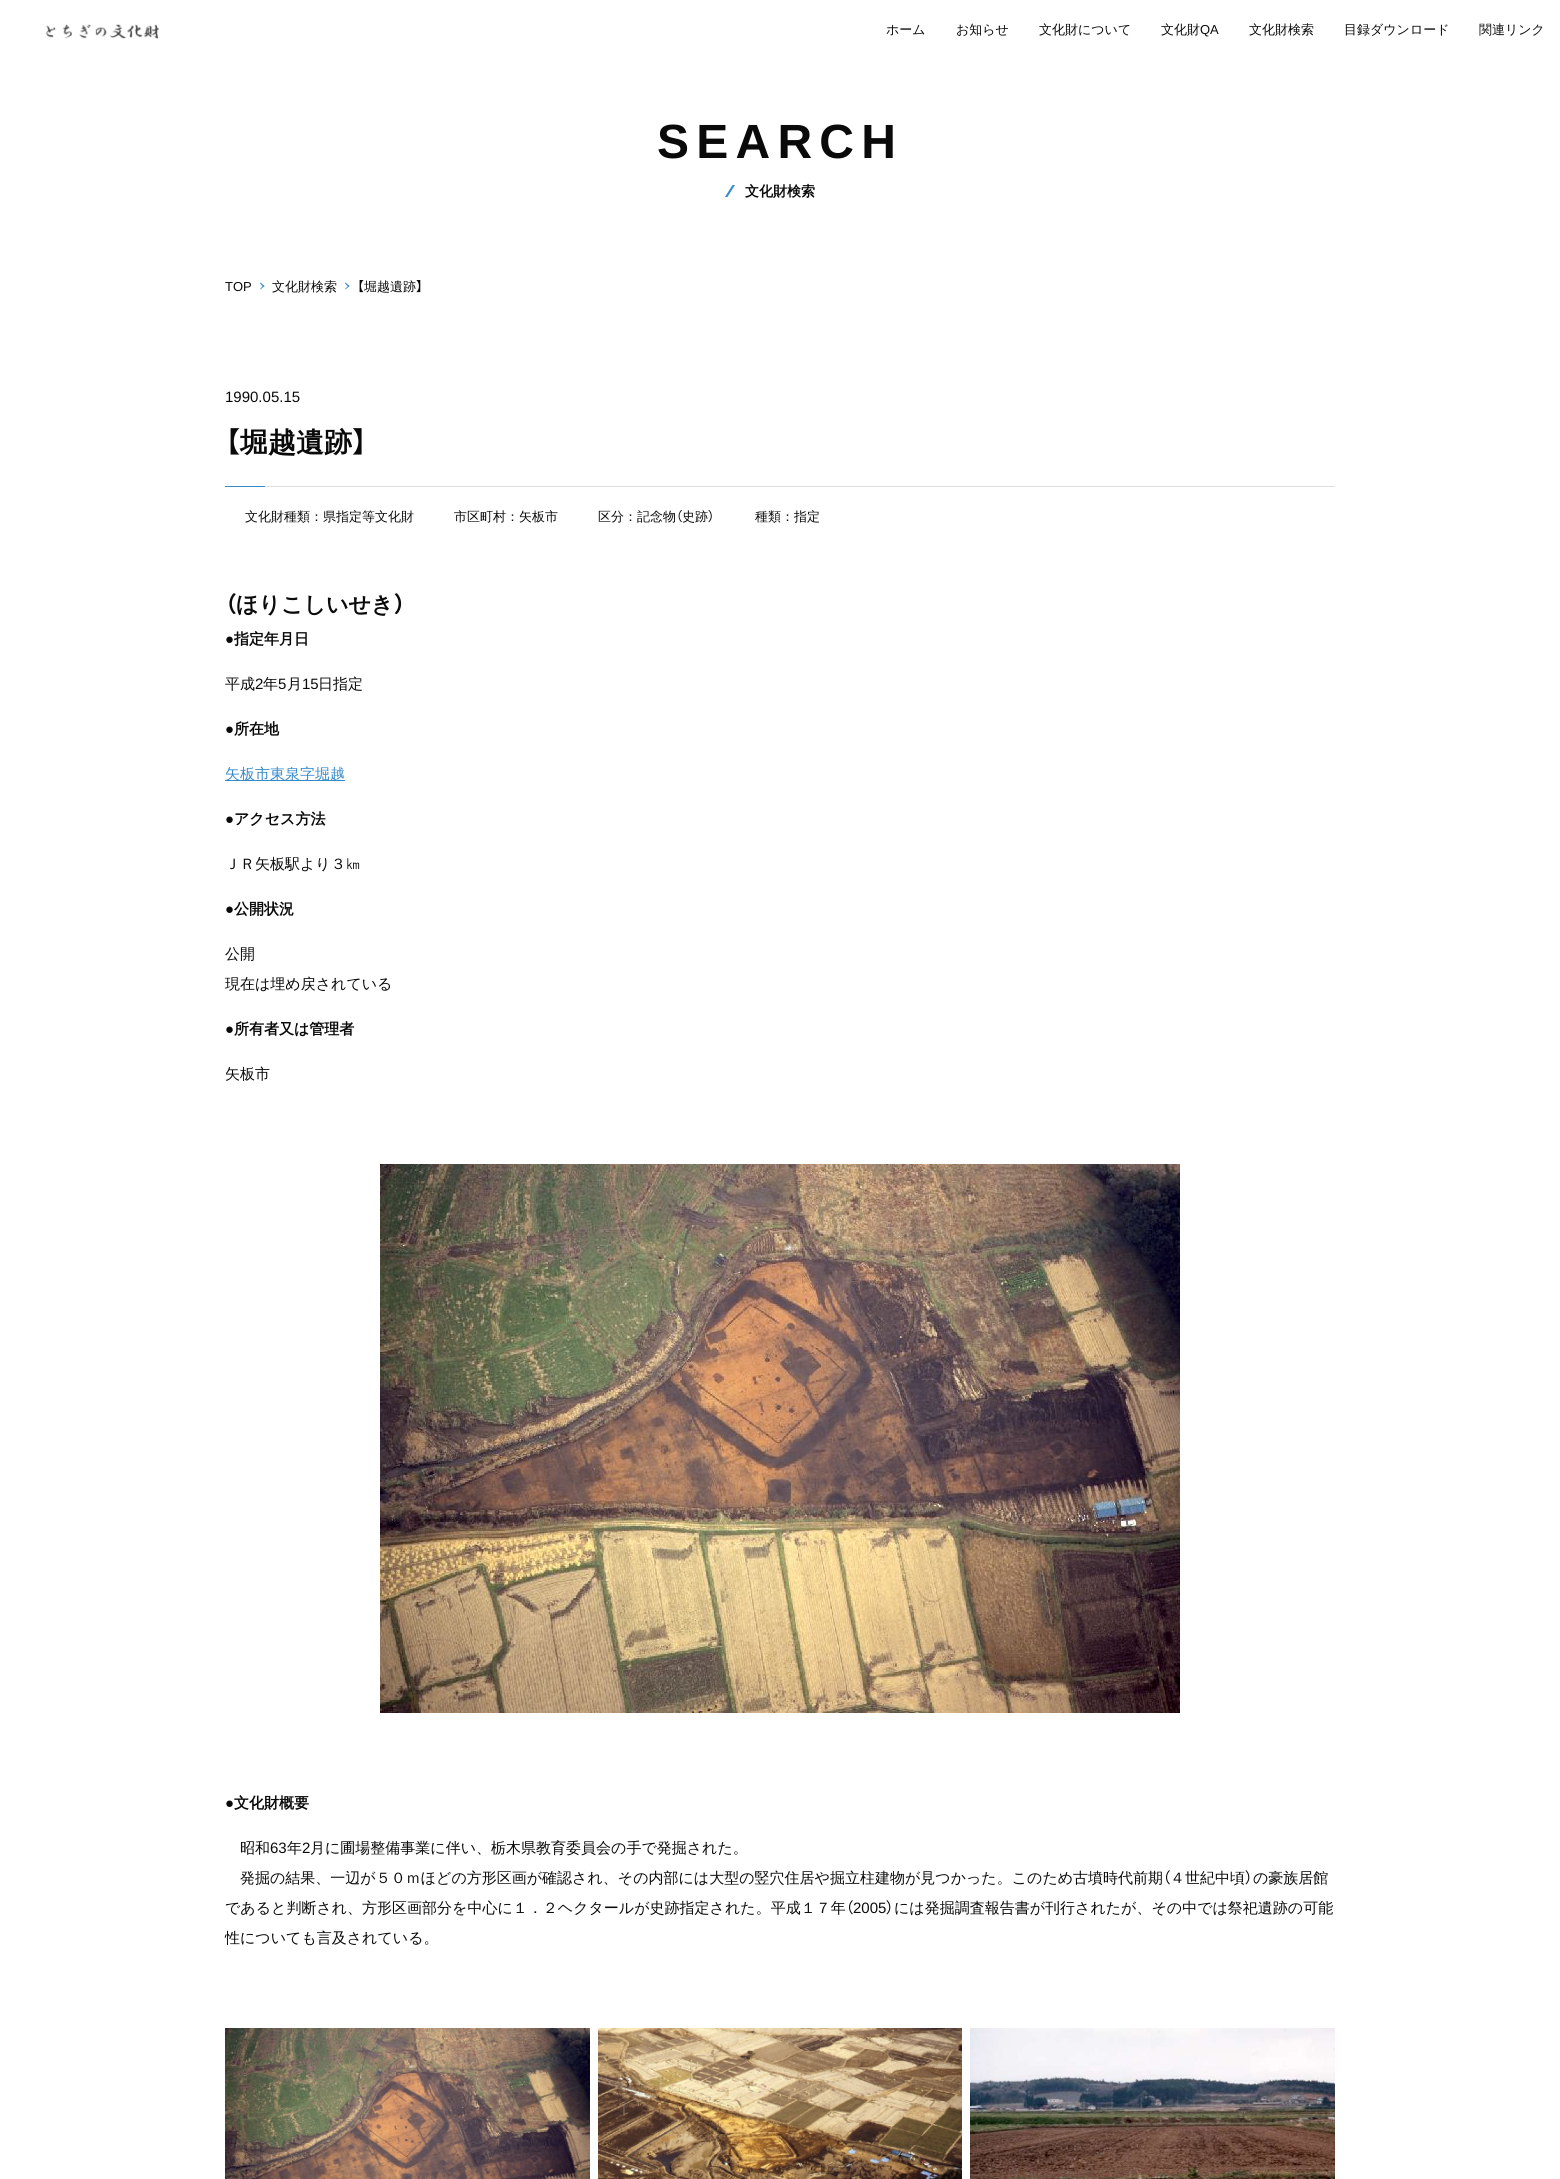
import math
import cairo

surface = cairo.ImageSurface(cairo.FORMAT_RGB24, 1560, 2179)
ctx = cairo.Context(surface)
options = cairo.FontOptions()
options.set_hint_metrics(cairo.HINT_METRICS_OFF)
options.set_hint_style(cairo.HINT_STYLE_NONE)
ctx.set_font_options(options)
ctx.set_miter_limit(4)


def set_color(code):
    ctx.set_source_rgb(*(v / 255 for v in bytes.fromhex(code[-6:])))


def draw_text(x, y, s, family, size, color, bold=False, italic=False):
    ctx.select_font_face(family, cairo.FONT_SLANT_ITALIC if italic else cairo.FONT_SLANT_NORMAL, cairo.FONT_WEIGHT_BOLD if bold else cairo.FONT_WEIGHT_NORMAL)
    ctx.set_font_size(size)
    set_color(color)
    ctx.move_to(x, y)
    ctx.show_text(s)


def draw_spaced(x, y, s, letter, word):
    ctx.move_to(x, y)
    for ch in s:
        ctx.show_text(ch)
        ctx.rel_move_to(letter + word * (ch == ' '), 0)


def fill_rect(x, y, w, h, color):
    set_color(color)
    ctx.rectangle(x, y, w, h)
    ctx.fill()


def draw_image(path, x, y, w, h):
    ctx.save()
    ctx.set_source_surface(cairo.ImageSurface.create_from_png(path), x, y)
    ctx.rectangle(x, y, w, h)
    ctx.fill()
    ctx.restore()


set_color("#ffffff")
ctx.paint()
draw_image("assets/img1.png", 46, 24, 113, 15)
draw_text(886, 34, "ホーム", "WenQuanYi Zen Hei Medium", 13, "#0a0a0a")
draw_text(956, 34, "お知らせ", "WenQuanYi Zen Hei Medium", 13, "#0a0a0a")
draw_text(1039, 34, "文化財について", "WenQuanYi Zen Hei Medium", 13, "#0a0a0a")
draw_text(1161, 34, "文化財", "WenQuanYi Zen Hei Medium", 13, "#0a0a0a")
draw_text(1200, 34, "QA", "Liberation Sans", 13, "#0a0a0a")
draw_text(1249, 34, "文化財検索", "WenQuanYi Zen Hei Medium", 13, "#0a0a0a")
draw_text(1344, 34, "目録ダウンロード", "WenQuanYi Zen Hei Medium", 13, "#0a0a0a")
draw_text(1479, 34, "関連リンク", "WenQuanYi Zen Hei Medium", 13, "#0a0a0a")
ctx.select_font_face("Liberation Sans", cairo.FONT_SLANT_NORMAL, cairo.FONT_WEIGHT_BOLD)
ctx.set_font_size(48)
draw_spaced(657, 158, "SEARCH", 7.25, 0)
ctx.save()
ctx.rectangle(724, 185, 11, 12)
ctx.clip()
set_color("#378bc9")
ctx.new_path()
ctx.move_to(732.5, 185)
ctx.line_to(735, 185)
ctx.line_to(726.5, 198.5)
ctx.line_to(724, 198.5)
ctx.close_path()
ctx.fill()
ctx.restore()
draw_text(745, 196, "文化財検索", "WenQuanYi Zen Hei", 14, "#0a0a0a", bold=True)
draw_text(225, 291, "TOP", "Liberation Sans", 13, "#0a0a0a")
set_color("#378bc9")
ctx.new_path()
ctx.move_to(260.5, 282.5)
ctx.line_to(264.5, 286)
ctx.line_to(263.5, 287)
ctx.line_to(260, 283.5)
ctx.close_path()
ctx.fill()
ctx.new_path()
ctx.move_to(263.5, 285.5)
ctx.line_to(264.5, 286)
ctx.line_to(260.5, 289.5)
ctx.line_to(260, 289)
ctx.close_path()
ctx.fill()
draw_text(272, 291, "文化財検索", "WenQuanYi Zen Hei Medium", 13, "#0a0a0a")
set_color("#378bc9")
ctx.new_path()
ctx.move_to(345.5, 282.5)
ctx.line_to(349.5, 286)
ctx.line_to(348.5, 287)
ctx.line_to(345, 283.5)
ctx.close_path()
ctx.fill()
ctx.new_path()
ctx.move_to(348.5, 285.5)
ctx.line_to(349.5, 286)
ctx.line_to(345.5, 289.5)
ctx.line_to(345, 289)
ctx.close_path()
ctx.fill()
draw_text(357, 291, "【", "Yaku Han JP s", 13, "#0a0a0a")
draw_text(364, 291, "堀越遺跡", "WenQuanYi Zen Hei Medium", 13, "#0a0a0a")
draw_text(416, 291, "】", "Yaku Han JP s", 13, "#0a0a0a")
draw_text(225, 402, "1990.05.15", "Liberation Sans", 15, "#0a0a0a")
fill_rect(265, 486, 1070, 1, "#dddddd")
draw_text(225, 452, "【", "Yaku Han JP s", 28, "#0a0a0a", bold=True)
draw_text(240, 452, "堀越遺跡", "WenQuanYi Zen Hei", 28, "#0a0a0a", bold=True)
draw_text(352, 452, "】", "Yaku Han JP s", 28, "#0a0a0a", bold=True)
fill_rect(225, 486, 40, 1, "#378bc9")
draw_text(245, 521, "文化財種類：県指定等文化財", "WenQuanYi Zen Hei Medium", 13, "#0a0a0a")
draw_text(454, 521, "市区町村：矢板市", "WenQuanYi Zen Hei Medium", 13, "#0a0a0a")
draw_text(598, 521, "区分：記念物", "WenQuanYi Zen Hei Medium", 13, "#0a0a0a")
draw_text(676, 521, "（", "Yaku Han JP s", 13, "#0a0a0a")
draw_text(682, 521, "史跡", "WenQuanYi Zen Hei Medium", 13, "#0a0a0a")
draw_text(708, 521, "）", "Yaku Han JP s", 13, "#0a0a0a")
draw_text(755, 521, "種類：指定", "WenQuanYi Zen Hei Medium", 13, "#0a0a0a")
draw_text(225, 612, "（", "Yaku Han JP s", 22, "#0a0a0a", bold=True)
draw_text(236, 612, "ほりこしいせき", "WenQuanYi Zen Hei", 22, "#0a0a0a", bold=True)
draw_text(394, 612, "）", "Yaku Han JP s", 22, "#0a0a0a", bold=True)
draw_text(225, 644, "●", "Liberation Sans", 15, "#0a0a0a", bold=True)
draw_text(234, 644, "指定年月日", "WenQuanYi Zen Hei", 15, "#0a0a0a", bold=True)
draw_text(225, 689, "平成", "WenQuanYi Zen Hei Medium", 15, "#0a0a0a")
draw_text(255, 689, "2", "Liberation Sans", 15, "#0a0a0a")
draw_text(263, 689, "年", "WenQuanYi Zen Hei Medium", 15, "#0a0a0a")
draw_text(278, 689, "5", "Liberation Sans", 15, "#0a0a0a")
draw_text(287, 689, "月", "WenQuanYi Zen Hei Medium", 15, "#0a0a0a")
draw_text(302, 689, "15", "Liberation Sans", 15, "#0a0a0a")
draw_text(318, 689, "日指定", "WenQuanYi Zen Hei Medium", 15, "#0a0a0a")
draw_text(225, 734, "●", "Liberation Sans", 15, "#0a0a0a", bold=True)
draw_text(234, 734, "所在地", "WenQuanYi Zen Hei", 15, "#0a0a0a", bold=True)
fill_rect(225, 780, 120, 1, "#378bc9")
draw_text(225, 779, "矢板市東泉字堀越", "WenQuanYi Zen Hei Medium", 15, "#378bc9")
draw_text(225, 824, "●", "Liberation Sans", 15, "#0a0a0a", bold=True)
draw_text(234, 824, "アクセス方法", "WenQuanYi Zen Hei", 15, "#0a0a0a", bold=True)
draw_text(225, 869, "ＪＲ矢板駅より３㎞", "WenQuanYi Zen Hei Medium", 15, "#0a0a0a")
draw_text(225, 914, "●", "Liberation Sans", 15, "#0a0a0a", bold=True)
draw_text(234, 914, "公開状況", "WenQuanYi Zen Hei", 15, "#0a0a0a", bold=True)
draw_text(225, 959, "公開", "WenQuanYi Zen Hei Medium", 15, "#0a0a0a")
draw_text(225, 989, "現在は埋め戻されている", "WenQuanYi Zen Hei Medium", 15, "#0a0a0a")
draw_text(225, 1034, "●", "Liberation Sans", 15, "#0a0a0a", bold=True)
draw_text(234, 1034, "所有者又は管理者", "WenQuanYi Zen Hei", 15, "#0a0a0a", bold=True)
draw_text(225, 1079, "矢板市", "WenQuanYi Zen Hei Medium", 15, "#0a0a0a")
draw_image("assets/img2.png", 380, 1164, 800, 549)
draw_text(225, 1808, "●", "Liberation Sans", 15, "#0a0a0a", bold=True)
draw_text(234, 1808, "文化財概要", "WenQuanYi Zen Hei", 15, "#0a0a0a", bold=True)
draw_text(240, 1853, "昭和", "WenQuanYi Zen Hei Medium", 15, "#0a0a0a")
draw_text(270, 1853, "63", "Liberation Sans", 15, "#0a0a0a")
draw_text(287, 1853, "年", "WenQuanYi Zen Hei Medium", 15, "#0a0a0a")
draw_text(302, 1853, "2", "Liberation Sans", 15, "#0a0a0a")
draw_text(310, 1853, "月に圃場整備事業に伴い、栃木県教育委員会の手で発掘された。", "WenQuanYi Zen Hei Medium", 15, "#0a0a0a")
draw_text(240, 1883, "発掘の結果、一辺が５０ｍほどの方形区画が確認され、その内部には大型の竪穴住居や掘立柱建物が見つかった。このため古墳時代前期", "WenQuanYi Zen Hei Medium", 15, "#0a0a0a")
draw_text(1163, 1883, "（", "Yaku Han JP s", 15, "#0a0a0a")
draw_text(1170, 1883, "４世紀中頃", "WenQuanYi Zen Hei Medium", 15, "#0a0a0a")
draw_text(1245, 1883, "）", "Yaku Han JP s", 15, "#0a0a0a")
draw_text(1253, 1883, "の豪族居館", "WenQuanYi Zen Hei Medium", 15, "#0a0a0a")
draw_text(225, 1913, "であると判断され、方形区画部分を中心に１．２ヘクタールが史跡指定された。平成１７年", "WenQuanYi Zen Hei Medium", 15, "#0a0a0a")
draw_text(846, 1913, "（", "Yaku Han JP s", 15, "#0a0a0a")
draw_text(853, 1913, "2005", "Liberation Sans", 15, "#0a0a0a")
draw_text(886, 1913, "）", "Yaku Han JP s", 15, "#0a0a0a")
draw_text(894, 1913, "には発掘調査報告書が刊行されたが、その中では祭祀遺跡の可能", "WenQuanYi Zen Hei Medium", 15, "#0a0a0a")
draw_text(225, 1943, "性についても言及されている。", "WenQuanYi Zen Hei Medium", 15, "#0a0a0a")
draw_image("assets/img3.png", 225, 2028, 365, 151)
draw_image("assets/img4.png", 598, 2028, 364, 151)
draw_image("assets/img5.png", 970, 2028, 365, 151)
surface.write_to_png("output.png")
